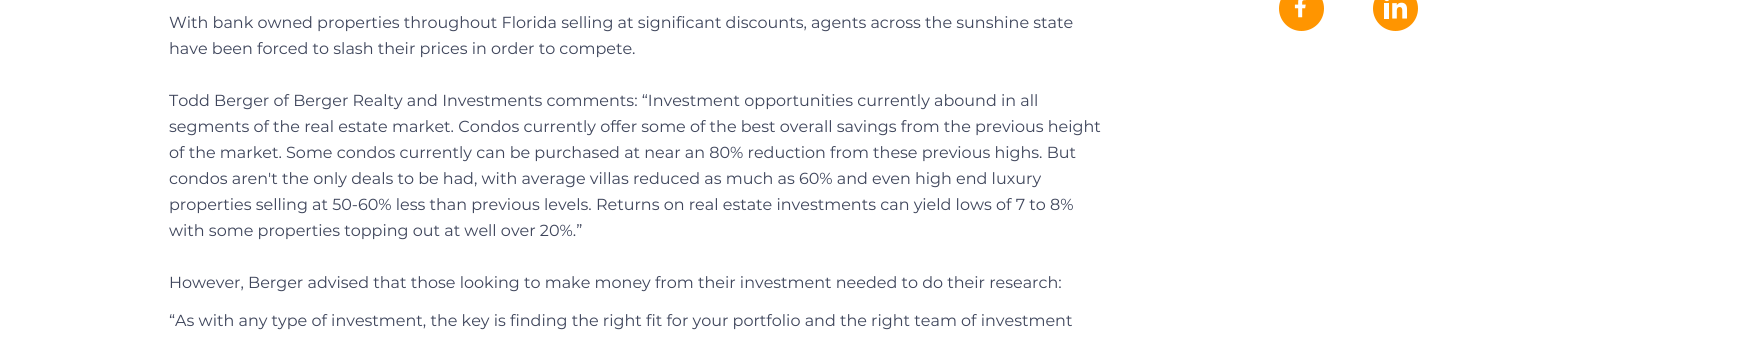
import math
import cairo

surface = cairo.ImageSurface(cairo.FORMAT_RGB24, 1745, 342)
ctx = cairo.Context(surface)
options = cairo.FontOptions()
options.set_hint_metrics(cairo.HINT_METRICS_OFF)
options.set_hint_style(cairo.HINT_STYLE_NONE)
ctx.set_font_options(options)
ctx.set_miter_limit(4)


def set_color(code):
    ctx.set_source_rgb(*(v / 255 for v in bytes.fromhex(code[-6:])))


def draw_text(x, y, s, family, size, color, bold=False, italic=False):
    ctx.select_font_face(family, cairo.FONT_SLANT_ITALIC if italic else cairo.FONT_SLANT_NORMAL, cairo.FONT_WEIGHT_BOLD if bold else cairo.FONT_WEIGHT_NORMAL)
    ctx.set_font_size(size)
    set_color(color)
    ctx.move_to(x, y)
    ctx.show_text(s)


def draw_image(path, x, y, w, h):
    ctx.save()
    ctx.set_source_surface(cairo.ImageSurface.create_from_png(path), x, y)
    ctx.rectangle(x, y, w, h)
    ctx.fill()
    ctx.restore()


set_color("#ffffff")
ctx.paint()
set_color("#ff9500")
ctx.arc(1301.5, 8.5, 22.5, 0, 2 * math.pi)
ctx.fill()
draw_image("assets/img1.png", 1294, 0, 12, 18)
ctx.arc(1395.5, 8.5, 22.5, 0, 2 * math.pi)
ctx.fill()
draw_image("assets/img2.png", 1384, 0, 23, 19)
draw_text(169, 28, "With bank owned properties throughout Florida selling at significant discounts, agents across the sunshine state", "Montserrat", 16, "#3e455b")
draw_text(169, 54, "have been forced to slash their prices in order to compete.", "Montserrat", 16, "#3e455b")
draw_text(169, 106, "Todd Berger of Berger Realty and Investments comments: “Investment opportunities currently abound in all", "Montserrat", 16, "#3e455b")
draw_text(169, 132, "segments of the real estate market. Condos currently offer some of the best overall savings from the previous height", "Montserrat", 16, "#3e455b")
draw_text(169, 158, "of the market. Some condos currently can be purchased at near an 80% reduction from these previous highs. But", "Montserrat", 16, "#3e455b")
draw_text(169, 184, "condos aren't the only deals to be had, with average villas reduced as much as 60% and even high end luxury", "Montserrat", 16, "#3e455b")
draw_text(169, 210, "properties selling at 50-60% less than previous levels. Returns on real estate investments can yield lows of 7 to 8%", "Montserrat", 16, "#3e455b")
draw_text(169, 236, "with some properties topping out at well over 20%.”", "Montserrat", 16, "#3e455b")
draw_text(169, 288, "However, Berger advised that those looking to make money from their investment needed to do their research:", "Montserrat", 16, "#3e455b")
draw_text(169, 326, "“As with any type of investment, the key is finding the right fit for your portfolio and the right team of investment", "Montserrat", 16, "#3e455b")
surface.write_to_png("output.png")
